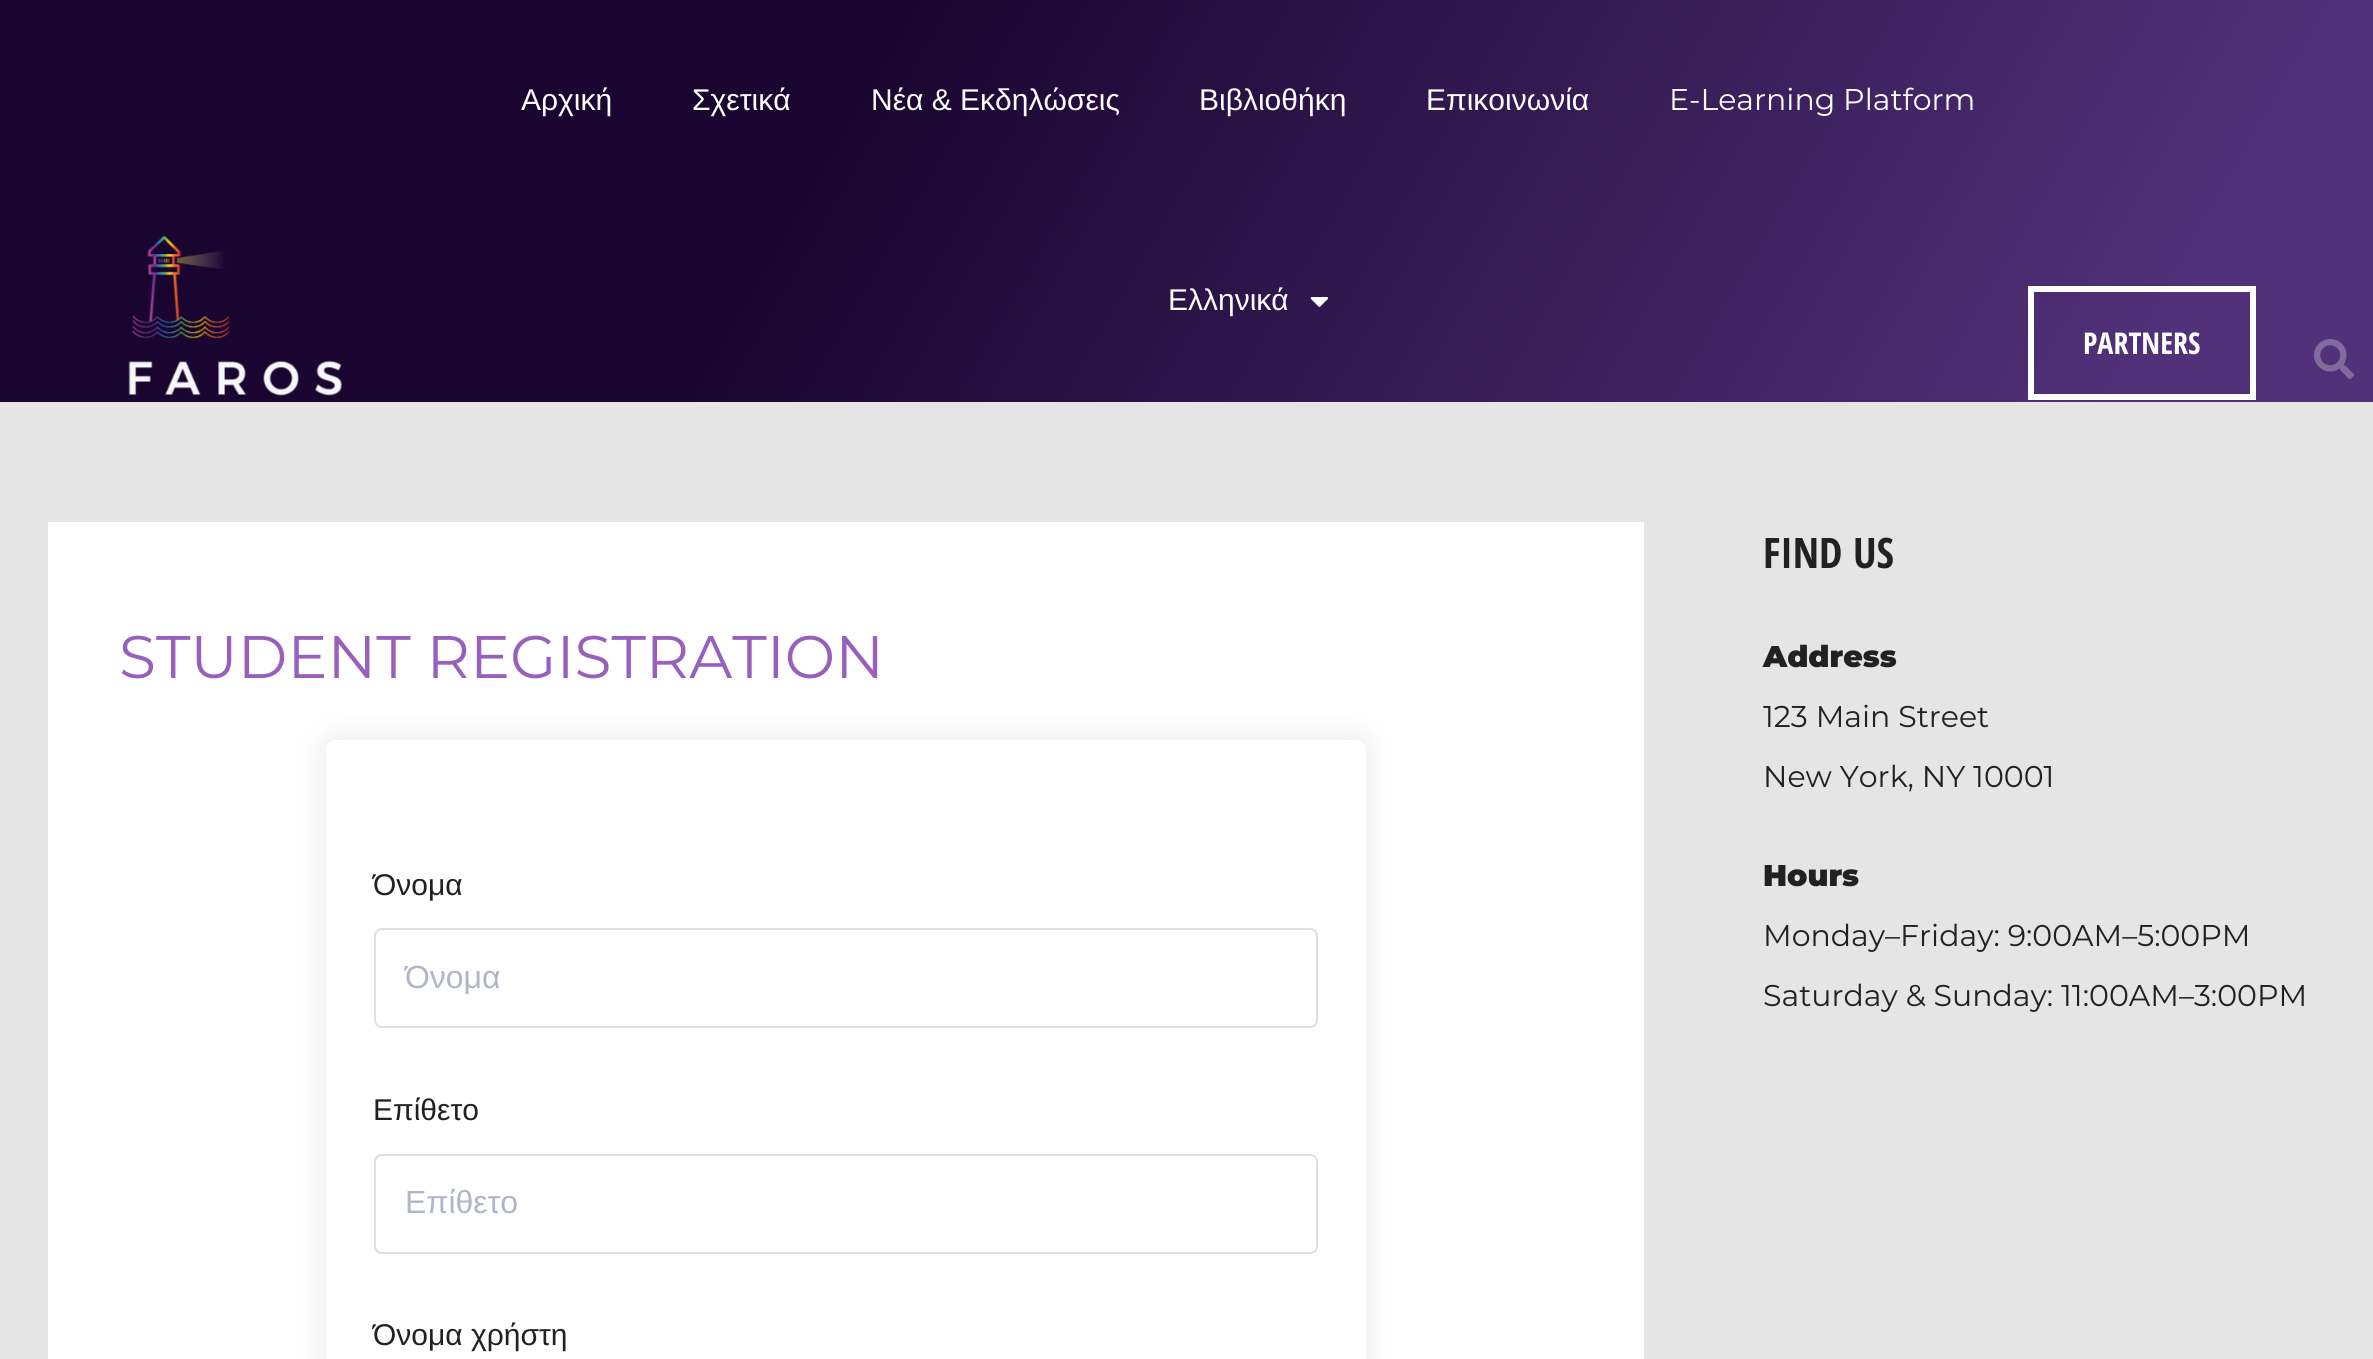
import math
import cairo

surface = cairo.ImageSurface(cairo.FORMAT_RGB24, 2373, 1359)
ctx = cairo.Context(surface)
options = cairo.FontOptions()
options.set_hint_metrics(cairo.HINT_METRICS_OFF)
options.set_hint_style(cairo.HINT_STYLE_NONE)
ctx.set_font_options(options)
ctx.set_miter_limit(4)


def set_color(code):
    ctx.set_source_rgb(*(v / 255 for v in bytes.fromhex(code[-6:])))


def draw_text(x, y, s, family, size, color, bold=False, italic=False):
    ctx.select_font_face(family, cairo.FONT_SLANT_ITALIC if italic else cairo.FONT_SLANT_NORMAL, cairo.FONT_WEIGHT_BOLD if bold else cairo.FONT_WEIGHT_NORMAL)
    ctx.set_font_size(size)
    set_color(color)
    ctx.move_to(x, y)
    ctx.show_text(s)


def fill_rect(x, y, w, h, color):
    set_color(color)
    ctx.rectangle(x, y, w, h)
    ctx.fill()


def rounded_rect(x, y, w, h, r):
    ctx.new_sub_path()
    for i, (u, v) in enumerate([(x + w - r, y + h - r), (x + r, y + h - r), (x + r, y + r), (x + w - r, y + r)]):
        ctx.arc(u, v, r, i * math.pi / 2, (i + 1) * math.pi / 2)
    ctx.close_path()


def draw_shadow(x, y, w, h, r, blur, alpha):
    ctx.push_group_with_content(cairo.CONTENT_ALPHA)
    ctx.set_operator(cairo.OPERATOR_SOURCE)
    for i in range(15, -16, -2):
        e = blur * i / 6
        if min(w, h) + 2 * e > 0:
            ctx.set_source_rgba(0, 0, 0, alpha * math.erfc((i - 1) / 8.5) / 2)
            rounded_rect(x - e, y - e, w + 2 * e, h + 2 * e, max(0, min(r + e + blur * .6, min(w, h) / 2 + e)))
            ctx.fill()
    ctx.mask(ctx.pop_group())


def draw_image(path, x, y, w, h):
    ctx.save()
    ctx.set_source_surface(cairo.ImageSurface.create_from_png(path), x, y)
    ctx.rectangle(x, y, w, h)
    ctx.fill()
    ctx.restore()


set_color("#e5e5e5")
ctx.paint()
gradient = cairo.LinearGradient(210, -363, 2164, 765)
gradient.add_color_stop_rgba(0.35, 0.102, 0.02, 0.188, 1)
gradient.add_color_stop_rgba(0.91, 0.318, 0.192, 0.475, 1)
ctx.set_source(gradient)
ctx.rectangle(0, 0, 2373, 402)
ctx.fill()
draw_image("assets/img1.png", 128, 235, 214, 161)
draw_text(521, 110, "Αρχική", "Liberation Sans", 30, "#ffffff")
draw_text(692, 110, "Σχετικά", "Liberation Sans", 30, "#ffffff")
draw_text(871, 110, "Νέα & Εκδηλώσεις", "Liberation Sans", 30, "#ffffff")
draw_text(1199, 110, "Βιβλιοθήκη", "Liberation Sans", 30, "#ffffff")
draw_text(1426, 110, "Επικοινωνία", "Liberation Sans", 30, "#ffffff")
draw_text(1669, 110, "E-Learning Platform", "Montserrat", 30, "#ffffff")
draw_text(1168, 310, "Ελληνικά", "Liberation Sans", 30, "#ffffff")
draw_image("assets/img2.png", 1310, 297, 19, 10)
ctx.rectangle(2031, 289, 222, 108)
ctx.set_line_width(6)
ctx.stroke()
draw_text(2083, 354, "PARTNERS", "Open Sans Condensed", 30, "#ffffff", bold=True)
draw_image("assets/img3.png", 2314, 339, 40, 40)
fill_rect(48, 522, 1596, 837, "#ffffff")
draw_text(119, 678, "STUDENT REGISTRATION", "Montserrat", 60, "#985fbc")
ctx.save()
ctx.set_fill_rule(cairo.FILL_RULE_EVEN_ODD)
ctx.new_path()
ctx.move_to(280, 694)
ctx.line_to(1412, 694)
ctx.line_to(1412, 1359)
ctx.line_to(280, 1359)
ctx.close_path()
ctx.move_to(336, 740)
ctx.line_to(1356, 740)
ctx.curve_to(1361.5, 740, 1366, 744.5, 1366, 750)
ctx.line_to(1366, 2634)
ctx.curve_to(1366, 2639.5, 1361.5, 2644, 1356, 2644)
ctx.line_to(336, 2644)
ctx.curve_to(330.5, 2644, 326, 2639.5, 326, 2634)
ctx.line_to(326, 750)
ctx.curve_to(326, 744.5, 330.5, 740, 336, 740)
ctx.close_path()
ctx.clip()
set_color("#000000")
draw_shadow(326, 740, 1040, 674, 10, 15, 0.1)
ctx.restore()
draw_text(373, 895, "Όνομα", "Liberation Sans", 30, "#212121")
rounded_rect(375, 929, 942, 98, 7)
set_color("#dcdfe5")
ctx.set_line_width(2)
ctx.stroke()
draw_text(405, 988, "Όνομα", "Liberation Sans", 32, "#b0b6c8")
draw_text(373, 1120, "Επίθετο", "Liberation Sans", 30, "#212121")
rounded_rect(375, 1155, 942, 98, 7)
set_color("#dcdfe5")
ctx.stroke()
draw_text(405, 1213, "Επίθετο", "Liberation Sans", 32, "#b0b6c8")
draw_text(373, 1345, "Όνομα χρήστη", "Liberation Sans", 30, "#212121")
draw_text(1763, 568, "FIND US", "Open Sans Condensed", 42, "#212121", bold=True)
draw_text(1763, 667, "Address", "Montserrat Black", 30, "#212121")
draw_text(1763, 727, "123 Main Street", "Montserrat", 30, "#212121")
draw_text(1763, 787, "New York, NY 10001", "Montserrat", 30, "#212121")
draw_text(1763, 886, "Hours", "Montserrat Black", 30, "#212121")
draw_text(1763, 946, "Monday–Friday: 9:00AM–5:00PM", "Montserrat", 30, "#212121")
draw_text(1763, 1006, "Saturday & Sunday: 11:00AM–3:00PM", "Montserrat", 30, "#212121")
surface.write_to_png("output.png")
